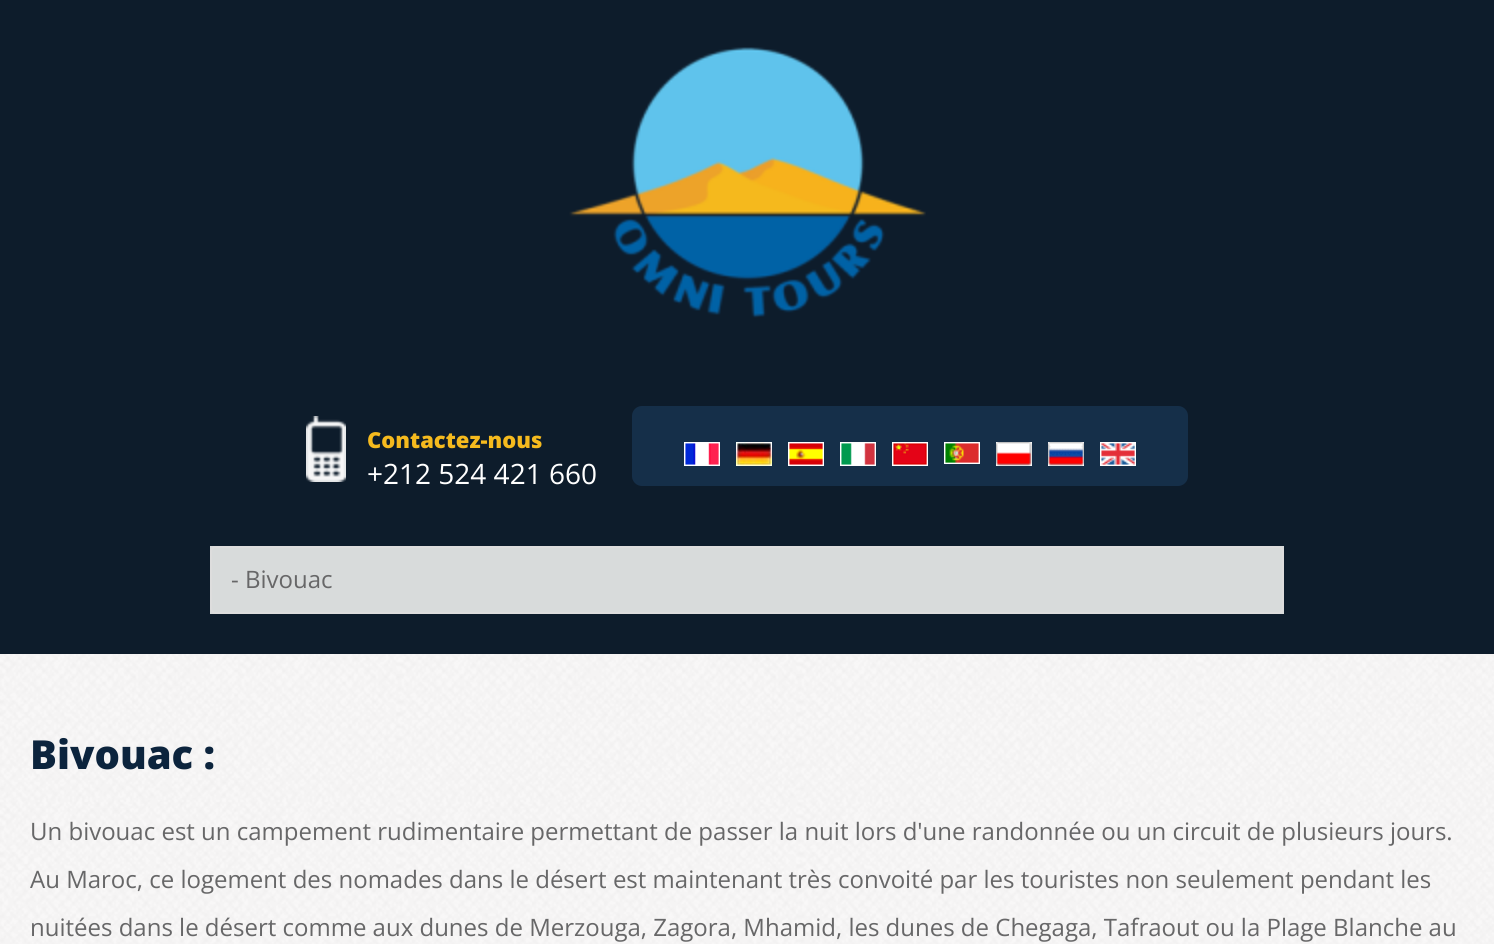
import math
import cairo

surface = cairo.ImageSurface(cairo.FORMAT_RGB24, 1494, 944)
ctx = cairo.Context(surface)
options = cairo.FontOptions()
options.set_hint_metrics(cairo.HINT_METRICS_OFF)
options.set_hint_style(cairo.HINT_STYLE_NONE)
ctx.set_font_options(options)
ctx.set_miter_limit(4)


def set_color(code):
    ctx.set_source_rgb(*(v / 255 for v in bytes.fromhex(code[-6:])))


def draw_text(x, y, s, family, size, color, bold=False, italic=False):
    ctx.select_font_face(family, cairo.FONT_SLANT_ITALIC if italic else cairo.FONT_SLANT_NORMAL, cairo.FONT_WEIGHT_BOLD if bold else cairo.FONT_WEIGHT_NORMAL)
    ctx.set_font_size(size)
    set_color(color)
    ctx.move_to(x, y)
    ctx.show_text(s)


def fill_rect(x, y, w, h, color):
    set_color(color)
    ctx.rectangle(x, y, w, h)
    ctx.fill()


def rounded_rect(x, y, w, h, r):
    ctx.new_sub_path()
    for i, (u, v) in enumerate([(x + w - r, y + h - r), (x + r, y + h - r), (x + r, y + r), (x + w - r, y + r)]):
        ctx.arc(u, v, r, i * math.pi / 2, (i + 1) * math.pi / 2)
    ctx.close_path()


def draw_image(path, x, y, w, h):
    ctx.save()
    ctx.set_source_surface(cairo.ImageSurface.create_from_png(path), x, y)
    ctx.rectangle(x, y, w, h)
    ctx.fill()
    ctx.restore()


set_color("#ffffff")
ctx.paint()
draw_image("assets/img1.png", 0, 654, 1494, 290)
fill_rect(0, 0, 1494, 654, "#0d1c2b")
draw_image("assets/img2.png", 569, 47, 357, 271)
draw_image("assets/img3.png", 306, 416, 40, 66)
draw_text(367, 448, "Contactez-nous", "Open Sans ExtraBold", 22, "#f5ba1e")
draw_text(367, 484, "+212 524 421 660", "Open Sans", 28, "#ffffff")
set_color("#152f49")
rounded_rect(632, 406, 556, 80, 10)
ctx.fill()
draw_image("assets/img4.png", 684, 442, 36, 24)
draw_image("assets/img5.png", 736, 442, 36, 24)
draw_image("assets/img6.png", 788, 442, 36, 24)
draw_image("assets/img7.png", 840, 442, 36, 24)
draw_image("assets/img8.png", 892, 442, 36, 24)
draw_image("assets/img9.png", 944, 442, 36, 22)
draw_image("assets/img10.png", 996, 442, 36, 24)
draw_image("assets/img11.png", 1048, 442, 36, 24)
draw_image("assets/img12.png", 1100, 442, 36, 24)
fill_rect(210, 546, 1074, 68, "#d8dbdb")
rounded_rect(211, 547, 1072, 66, 5)
set_color("#dddddd")
ctx.stroke()
draw_text(231, 588, "- Bivouac", "Open Sans", 24, "#676768")
ctx.set_source_rgba(0.922, 0.91, 0.91, 0.3)
ctx.rectangle(0, 654, 1494, 290)
ctx.fill()
draw_text(30, 769, "Bivouac :", "Open Sans ExtraBold", 40, "#0c243d")
draw_text(30, 840, "Un bivouac est un campement rudimentaire permettant de passer la nuit lors d'une randonnée ou un circuit de plusieurs jours.", "Open Sans", 24, "#676768")
draw_text(30, 888, "Au Maroc, ce logement des nomades dans le désert est maintenant très convoité par les touristes non seulement pendant les", "Open Sans", 24, "#676768")
draw_text(30, 936, "nuitées dans le désert comme aux dunes de Merzouga, Zagora, Mhamid, les dunes de Chegaga, Tafraout ou la Plage Blanche au", "Open Sans", 24, "#676768")
surface.write_to_png("output.png")
